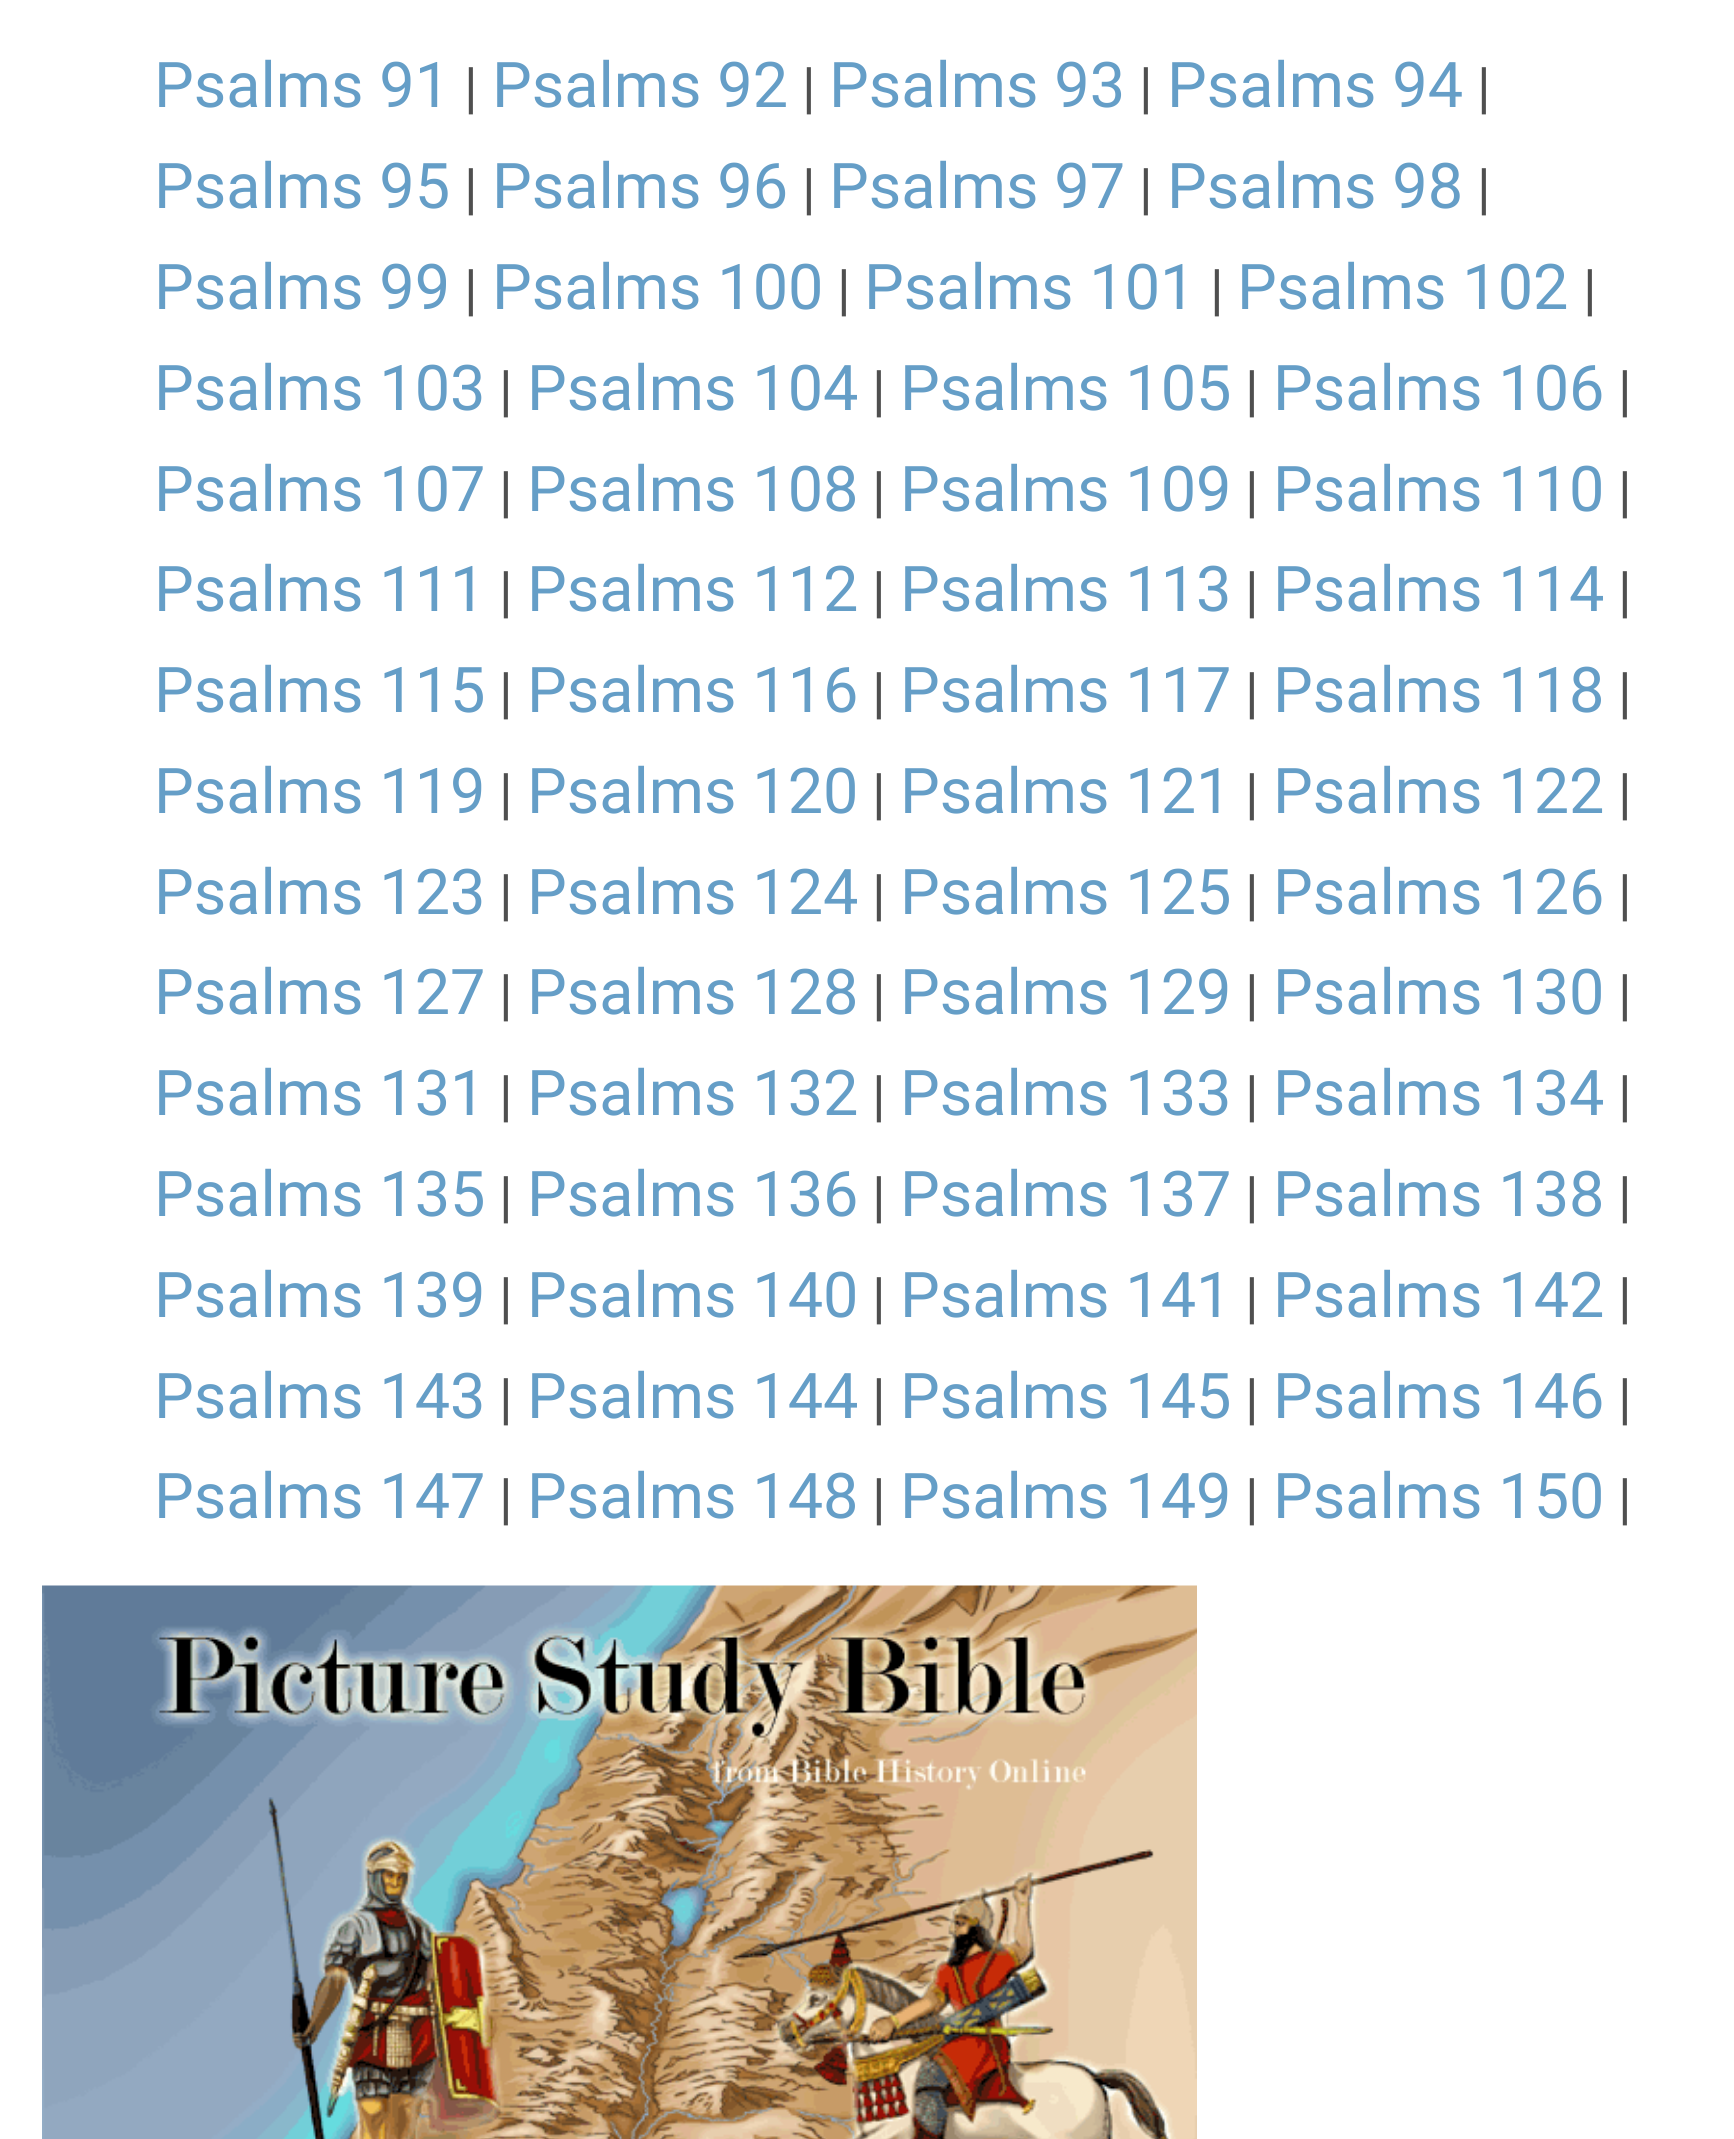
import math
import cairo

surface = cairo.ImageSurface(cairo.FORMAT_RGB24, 1734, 2139)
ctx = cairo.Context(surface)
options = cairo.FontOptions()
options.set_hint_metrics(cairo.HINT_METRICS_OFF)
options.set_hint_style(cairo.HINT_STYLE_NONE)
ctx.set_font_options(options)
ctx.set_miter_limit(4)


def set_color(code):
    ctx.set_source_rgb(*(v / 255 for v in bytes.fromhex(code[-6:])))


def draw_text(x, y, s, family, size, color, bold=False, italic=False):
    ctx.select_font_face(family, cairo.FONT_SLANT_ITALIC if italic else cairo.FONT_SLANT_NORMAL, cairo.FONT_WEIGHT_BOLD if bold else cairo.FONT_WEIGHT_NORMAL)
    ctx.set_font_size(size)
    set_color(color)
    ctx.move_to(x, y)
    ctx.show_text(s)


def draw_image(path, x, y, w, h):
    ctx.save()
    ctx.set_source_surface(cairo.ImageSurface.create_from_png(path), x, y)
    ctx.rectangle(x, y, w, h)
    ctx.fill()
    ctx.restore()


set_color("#ffffff")
ctx.paint()
draw_text(154, 107, "Psalms 91", "Roboto", 63, "#659ec7")
draw_text(464, 107, "|", "Roboto", 56, "#4f4f4f")
draw_text(492, 107, "Psalms 92", "Roboto", 63, "#659ec7")
draw_text(802, 107, "|", "Roboto", 56, "#4f4f4f")
draw_text(829, 107, "Psalms 93", "Roboto", 63, "#659ec7")
draw_text(1139, 107, "|", "Roboto", 56, "#4f4f4f")
draw_text(1167, 107, "Psalms 94", "Roboto", 63, "#659ec7")
draw_text(1477, 107, "|", "Roboto", 56, "#4f4f4f")
draw_text(154, 208, "Psalms 95", "Roboto", 63, "#659ec7")
draw_text(464, 208, "|", "Roboto", 56, "#4f4f4f")
draw_text(492, 208, "Psalms 96", "Roboto", 63, "#659ec7")
draw_text(802, 208, "|", "Roboto", 56, "#4f4f4f")
draw_text(829, 208, "Psalms 97", "Roboto", 63, "#659ec7")
draw_text(1139, 208, "|", "Roboto", 56, "#4f4f4f")
draw_text(1167, 208, "Psalms 98", "Roboto", 63, "#659ec7")
draw_text(1477, 208, "|", "Roboto", 56, "#4f4f4f")
draw_text(154, 309, "Psalms 99", "Roboto", 63, "#659ec7")
draw_text(464, 309, "|", "Roboto", 56, "#4f4f4f")
draw_text(492, 309, "Psalms 100", "Roboto", 63, "#659ec7")
draw_text(837, 309, "|", "Roboto", 56, "#4f4f4f")
draw_text(864, 309, "Psalms 101", "Roboto", 63, "#659ec7")
draw_text(1210, 309, "|", "Roboto", 56, "#4f4f4f")
draw_text(1237, 309, "Psalms 102", "Roboto", 63, "#659ec7")
draw_text(1583, 309, "|", "Roboto", 56, "#4f4f4f")
draw_text(154, 410, "Psalms 103", "Roboto", 63, "#659ec7")
draw_text(499, 410, "|", "Roboto", 56, "#4f4f4f")
draw_text(527, 410, "Psalms 104", "Roboto", 63, "#659ec7")
draw_text(872, 410, "|", "Roboto", 56, "#4f4f4f")
draw_text(900, 410, "Psalms 105", "Roboto", 63, "#659ec7")
draw_text(1245, 410, "|", "Roboto", 56, "#4f4f4f")
draw_text(1273, 410, "Psalms 106", "Roboto", 63, "#659ec7")
draw_text(1618, 410, "|", "Roboto", 56, "#4f4f4f")
draw_text(154, 511, "Psalms 107", "Roboto", 63, "#659ec7")
draw_text(499, 511, "|", "Roboto", 56, "#4f4f4f")
draw_text(527, 511, "Psalms 108", "Roboto", 63, "#659ec7")
draw_text(872, 511, "|", "Roboto", 56, "#4f4f4f")
draw_text(900, 511, "Psalms 109", "Roboto", 63, "#659ec7")
draw_text(1245, 511, "|", "Roboto", 56, "#4f4f4f")
draw_text(1273, 511, "Psalms 110", "Roboto", 63, "#659ec7")
draw_text(1618, 511, "|", "Roboto", 56, "#4f4f4f")
draw_text(154, 611, "Psalms 111", "Roboto", 63, "#659ec7")
draw_text(499, 611, "|", "Roboto", 56, "#4f4f4f")
draw_text(527, 611, "Psalms 112", "Roboto", 63, "#659ec7")
draw_text(872, 611, "|", "Roboto", 56, "#4f4f4f")
draw_text(900, 611, "Psalms 113", "Roboto", 63, "#659ec7")
draw_text(1245, 611, "|", "Roboto", 56, "#4f4f4f")
draw_text(1273, 611, "Psalms 114", "Roboto", 63, "#659ec7")
draw_text(1618, 611, "|", "Roboto", 56, "#4f4f4f")
draw_text(154, 712, "Psalms 115", "Roboto", 63, "#659ec7")
draw_text(499, 712, "|", "Roboto", 56, "#4f4f4f")
draw_text(527, 712, "Psalms 116", "Roboto", 63, "#659ec7")
draw_text(872, 712, "|", "Roboto", 56, "#4f4f4f")
draw_text(900, 712, "Psalms 117", "Roboto", 63, "#659ec7")
draw_text(1245, 712, "|", "Roboto", 56, "#4f4f4f")
draw_text(1273, 712, "Psalms 118", "Roboto", 63, "#659ec7")
draw_text(1618, 712, "|", "Roboto", 56, "#4f4f4f")
draw_text(154, 813, "Psalms 119", "Roboto", 63, "#659ec7")
draw_text(499, 813, "|", "Roboto", 56, "#4f4f4f")
draw_text(527, 813, "Psalms 120", "Roboto", 63, "#659ec7")
draw_text(872, 813, "|", "Roboto", 56, "#4f4f4f")
draw_text(900, 813, "Psalms 121", "Roboto", 63, "#659ec7")
draw_text(1245, 813, "|", "Roboto", 56, "#4f4f4f")
draw_text(1273, 813, "Psalms 122", "Roboto", 63, "#659ec7")
draw_text(1618, 813, "|", "Roboto", 56, "#4f4f4f")
draw_text(154, 914, "Psalms 123", "Roboto", 63, "#659ec7")
draw_text(499, 914, "|", "Roboto", 56, "#4f4f4f")
draw_text(527, 914, "Psalms 124", "Roboto", 63, "#659ec7")
draw_text(872, 914, "|", "Roboto", 56, "#4f4f4f")
draw_text(900, 914, "Psalms 125", "Roboto", 63, "#659ec7")
draw_text(1245, 914, "|", "Roboto", 56, "#4f4f4f")
draw_text(1273, 914, "Psalms 126", "Roboto", 63, "#659ec7")
draw_text(1618, 914, "|", "Roboto", 56, "#4f4f4f")
draw_text(154, 1014, "Psalms 127", "Roboto", 63, "#659ec7")
draw_text(499, 1014, "|", "Roboto", 56, "#4f4f4f")
draw_text(527, 1014, "Psalms 128", "Roboto", 63, "#659ec7")
draw_text(872, 1014, "|", "Roboto", 56, "#4f4f4f")
draw_text(900, 1014, "Psalms 129", "Roboto", 63, "#659ec7")
draw_text(1245, 1014, "|", "Roboto", 56, "#4f4f4f")
draw_text(1273, 1014, "Psalms 130", "Roboto", 63, "#659ec7")
draw_text(1618, 1014, "|", "Roboto", 56, "#4f4f4f")
draw_text(154, 1115, "Psalms 131", "Roboto", 63, "#659ec7")
draw_text(499, 1115, "|", "Roboto", 56, "#4f4f4f")
draw_text(527, 1115, "Psalms 132", "Roboto", 63, "#659ec7")
draw_text(872, 1115, "|", "Roboto", 56, "#4f4f4f")
draw_text(900, 1115, "Psalms 133", "Roboto", 63, "#659ec7")
draw_text(1245, 1115, "|", "Roboto", 56, "#4f4f4f")
draw_text(1273, 1115, "Psalms 134", "Roboto", 63, "#659ec7")
draw_text(1618, 1115, "|", "Roboto", 56, "#4f4f4f")
draw_text(154, 1216, "Psalms 135", "Roboto", 63, "#659ec7")
draw_text(499, 1216, "|", "Roboto", 56, "#4f4f4f")
draw_text(527, 1216, "Psalms 136", "Roboto", 63, "#659ec7")
draw_text(872, 1216, "|", "Roboto", 56, "#4f4f4f")
draw_text(900, 1216, "Psalms 137", "Roboto", 63, "#659ec7")
draw_text(1245, 1216, "|", "Roboto", 56, "#4f4f4f")
draw_text(1273, 1216, "Psalms 138", "Roboto", 63, "#659ec7")
draw_text(1618, 1216, "|", "Roboto", 56, "#4f4f4f")
draw_text(154, 1317, "Psalms 139", "Roboto", 63, "#659ec7")
draw_text(499, 1317, "|", "Roboto", 56, "#4f4f4f")
draw_text(527, 1317, "Psalms 140", "Roboto", 63, "#659ec7")
draw_text(872, 1317, "|", "Roboto", 56, "#4f4f4f")
draw_text(900, 1317, "Psalms 141", "Roboto", 63, "#659ec7")
draw_text(1245, 1317, "|", "Roboto", 56, "#4f4f4f")
draw_text(1273, 1317, "Psalms 142", "Roboto", 63, "#659ec7")
draw_text(1618, 1317, "|", "Roboto", 56, "#4f4f4f")
draw_text(154, 1418, "Psalms 143", "Roboto", 63, "#659ec7")
draw_text(499, 1418, "|", "Roboto", 56, "#4f4f4f")
draw_text(527, 1418, "Psalms 144", "Roboto", 63, "#659ec7")
draw_text(872, 1418, "|", "Roboto", 56, "#4f4f4f")
draw_text(900, 1418, "Psalms 145", "Roboto", 63, "#659ec7")
draw_text(1245, 1418, "|", "Roboto", 56, "#4f4f4f")
draw_text(1273, 1418, "Psalms 146", "Roboto", 63, "#659ec7")
draw_text(1618, 1418, "|", "Roboto", 56, "#4f4f4f")
draw_text(154, 1518, "Psalms 147", "Roboto", 63, "#659ec7")
draw_text(499, 1518, "|", "Roboto", 56, "#4f4f4f")
draw_text(527, 1518, "Psalms 148", "Roboto", 63, "#659ec7")
draw_text(872, 1518, "|", "Roboto", 56, "#4f4f4f")
draw_text(900, 1518, "Psalms 149", "Roboto", 63, "#659ec7")
draw_text(1245, 1518, "|", "Roboto", 56, "#4f4f4f")
draw_text(1273, 1518, "Psalms 150", "Roboto", 63, "#659ec7")
draw_text(1618, 1518, "|", "Roboto", 56, "#4f4f4f")
draw_image("assets/img1.png", 42, 1585, 1155, 554)
surface.write_to_png("output.png")
